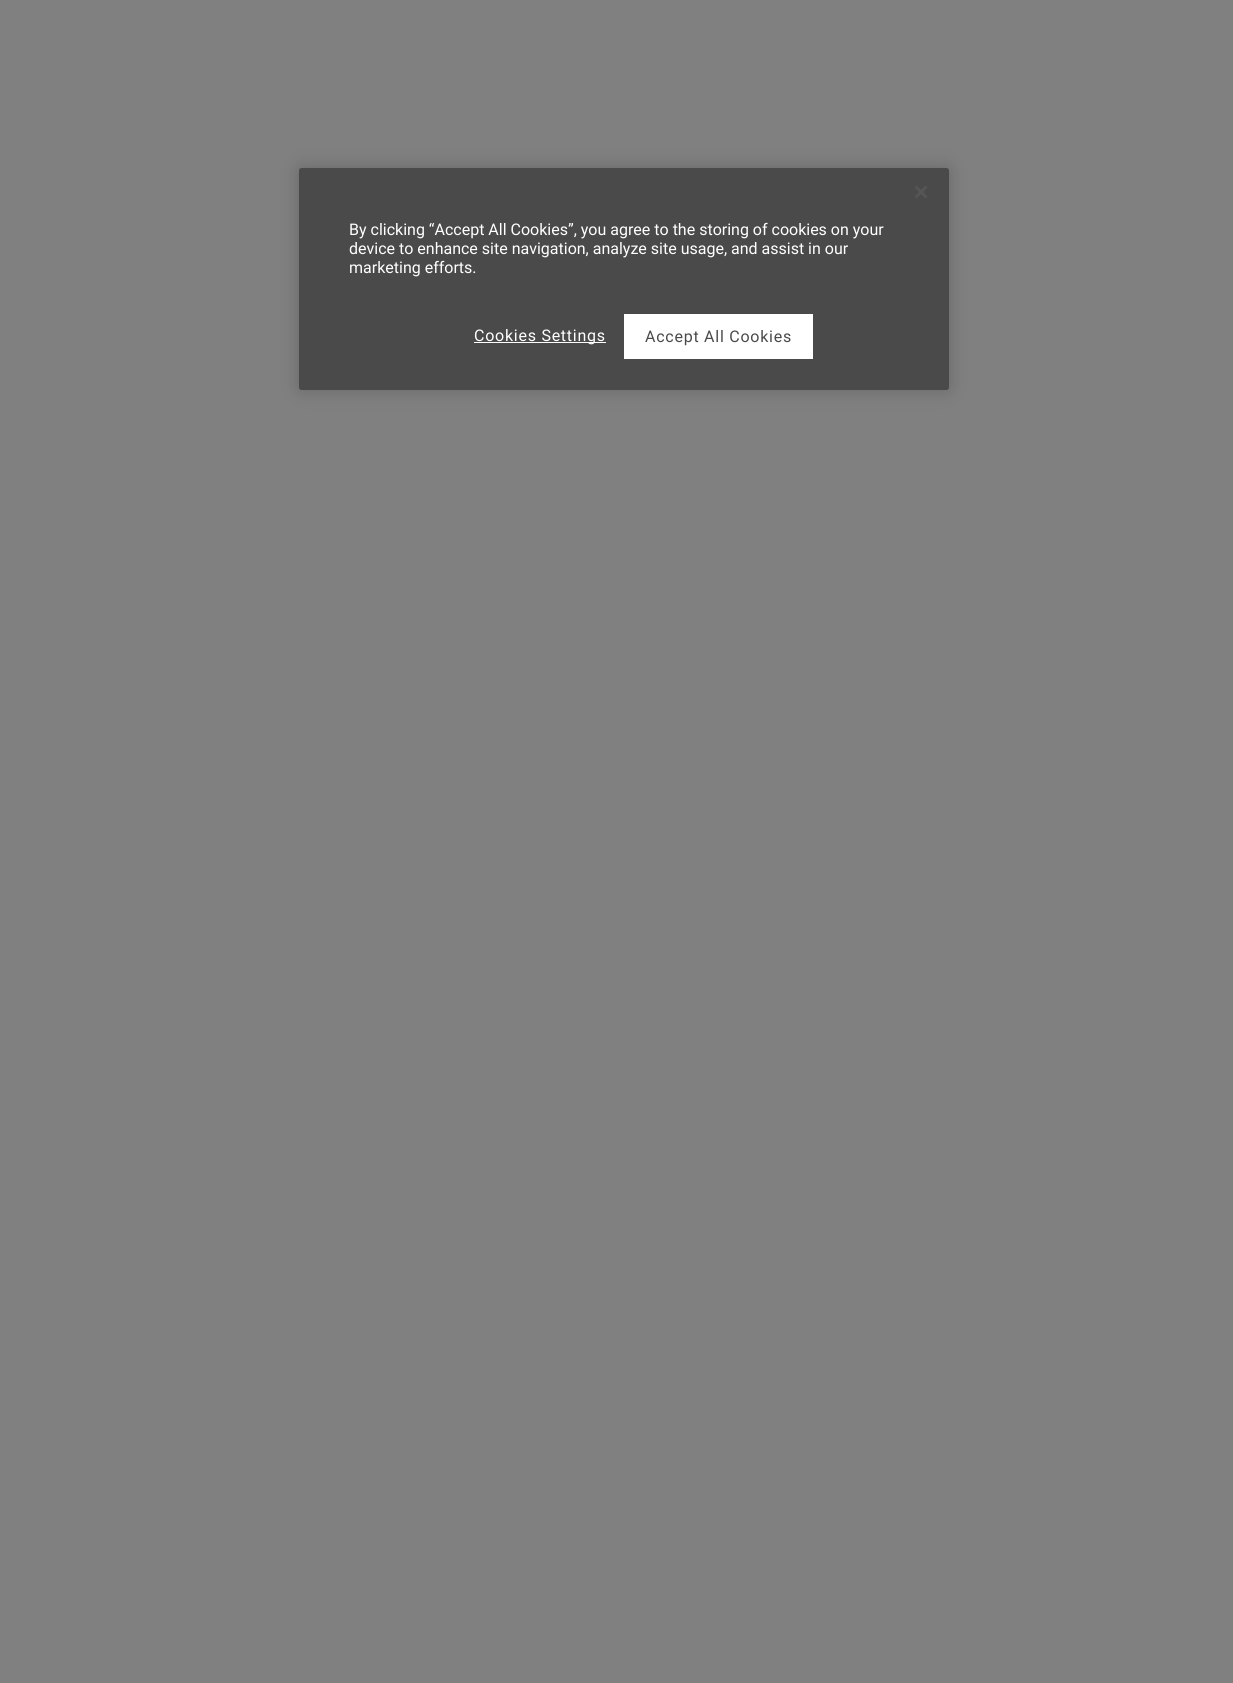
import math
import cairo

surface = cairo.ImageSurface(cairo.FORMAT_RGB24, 1233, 1683)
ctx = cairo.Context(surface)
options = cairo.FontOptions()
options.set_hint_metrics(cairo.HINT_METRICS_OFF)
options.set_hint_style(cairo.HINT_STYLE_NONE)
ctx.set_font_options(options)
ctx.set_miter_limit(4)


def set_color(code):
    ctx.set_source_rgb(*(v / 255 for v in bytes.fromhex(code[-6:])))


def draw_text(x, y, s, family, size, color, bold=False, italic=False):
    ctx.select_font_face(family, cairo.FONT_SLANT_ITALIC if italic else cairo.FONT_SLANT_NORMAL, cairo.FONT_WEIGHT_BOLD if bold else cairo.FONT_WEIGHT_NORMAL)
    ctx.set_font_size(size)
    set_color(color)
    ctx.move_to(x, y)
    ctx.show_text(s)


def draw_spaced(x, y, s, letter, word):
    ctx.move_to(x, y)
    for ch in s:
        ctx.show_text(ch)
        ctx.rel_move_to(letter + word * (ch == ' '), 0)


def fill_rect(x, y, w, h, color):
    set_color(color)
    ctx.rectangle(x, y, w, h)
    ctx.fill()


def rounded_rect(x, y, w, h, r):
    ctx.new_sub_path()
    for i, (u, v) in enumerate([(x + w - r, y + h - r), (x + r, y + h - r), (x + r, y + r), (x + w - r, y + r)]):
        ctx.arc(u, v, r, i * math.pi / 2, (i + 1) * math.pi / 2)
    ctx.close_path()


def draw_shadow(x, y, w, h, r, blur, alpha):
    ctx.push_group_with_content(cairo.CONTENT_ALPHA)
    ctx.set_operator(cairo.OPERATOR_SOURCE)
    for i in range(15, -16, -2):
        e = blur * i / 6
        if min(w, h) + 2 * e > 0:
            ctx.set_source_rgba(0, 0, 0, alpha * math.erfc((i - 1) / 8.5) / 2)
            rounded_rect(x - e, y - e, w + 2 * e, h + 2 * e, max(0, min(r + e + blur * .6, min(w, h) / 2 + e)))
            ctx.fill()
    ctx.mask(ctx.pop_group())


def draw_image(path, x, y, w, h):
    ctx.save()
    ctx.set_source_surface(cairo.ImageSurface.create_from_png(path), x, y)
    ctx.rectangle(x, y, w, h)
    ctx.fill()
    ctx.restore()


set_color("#808080")
ctx.paint()
set_color("#000000")
draw_shadow(299, 168, 650, 222, 2.5, 9, 0.2)
set_color("#4a4a4a")
rounded_rect(299, 168, 650, 222, 2.5)
ctx.fill()
draw_image("assets/img1.png", 915, 186, 12, 12)
draw_text(349, 235, "By clicking “Accept All Cookies”, you agree to the storing of cookies on your", "Roboto", 16, "#ffffff")
draw_text(349, 254, "device to enhance site navigation, analyze site usage, and assist in our", "Roboto", 16, "#ffffff")
draw_text(349, 273, "marketing efforts.", "Roboto", 16, "#ffffff")
fill_rect(474, 342, 132, 1, "#ffffff")
draw_spaced(474, 341, "Cookies Settings", 0.75, 0)
fill_rect(624, 314, 189, 45, "#ffffff")
set_color("#4a4a4a")
draw_spaced(645, 342, "Accept All Cookies", 0.75, 0)
surface.write_to_png("output.png")
